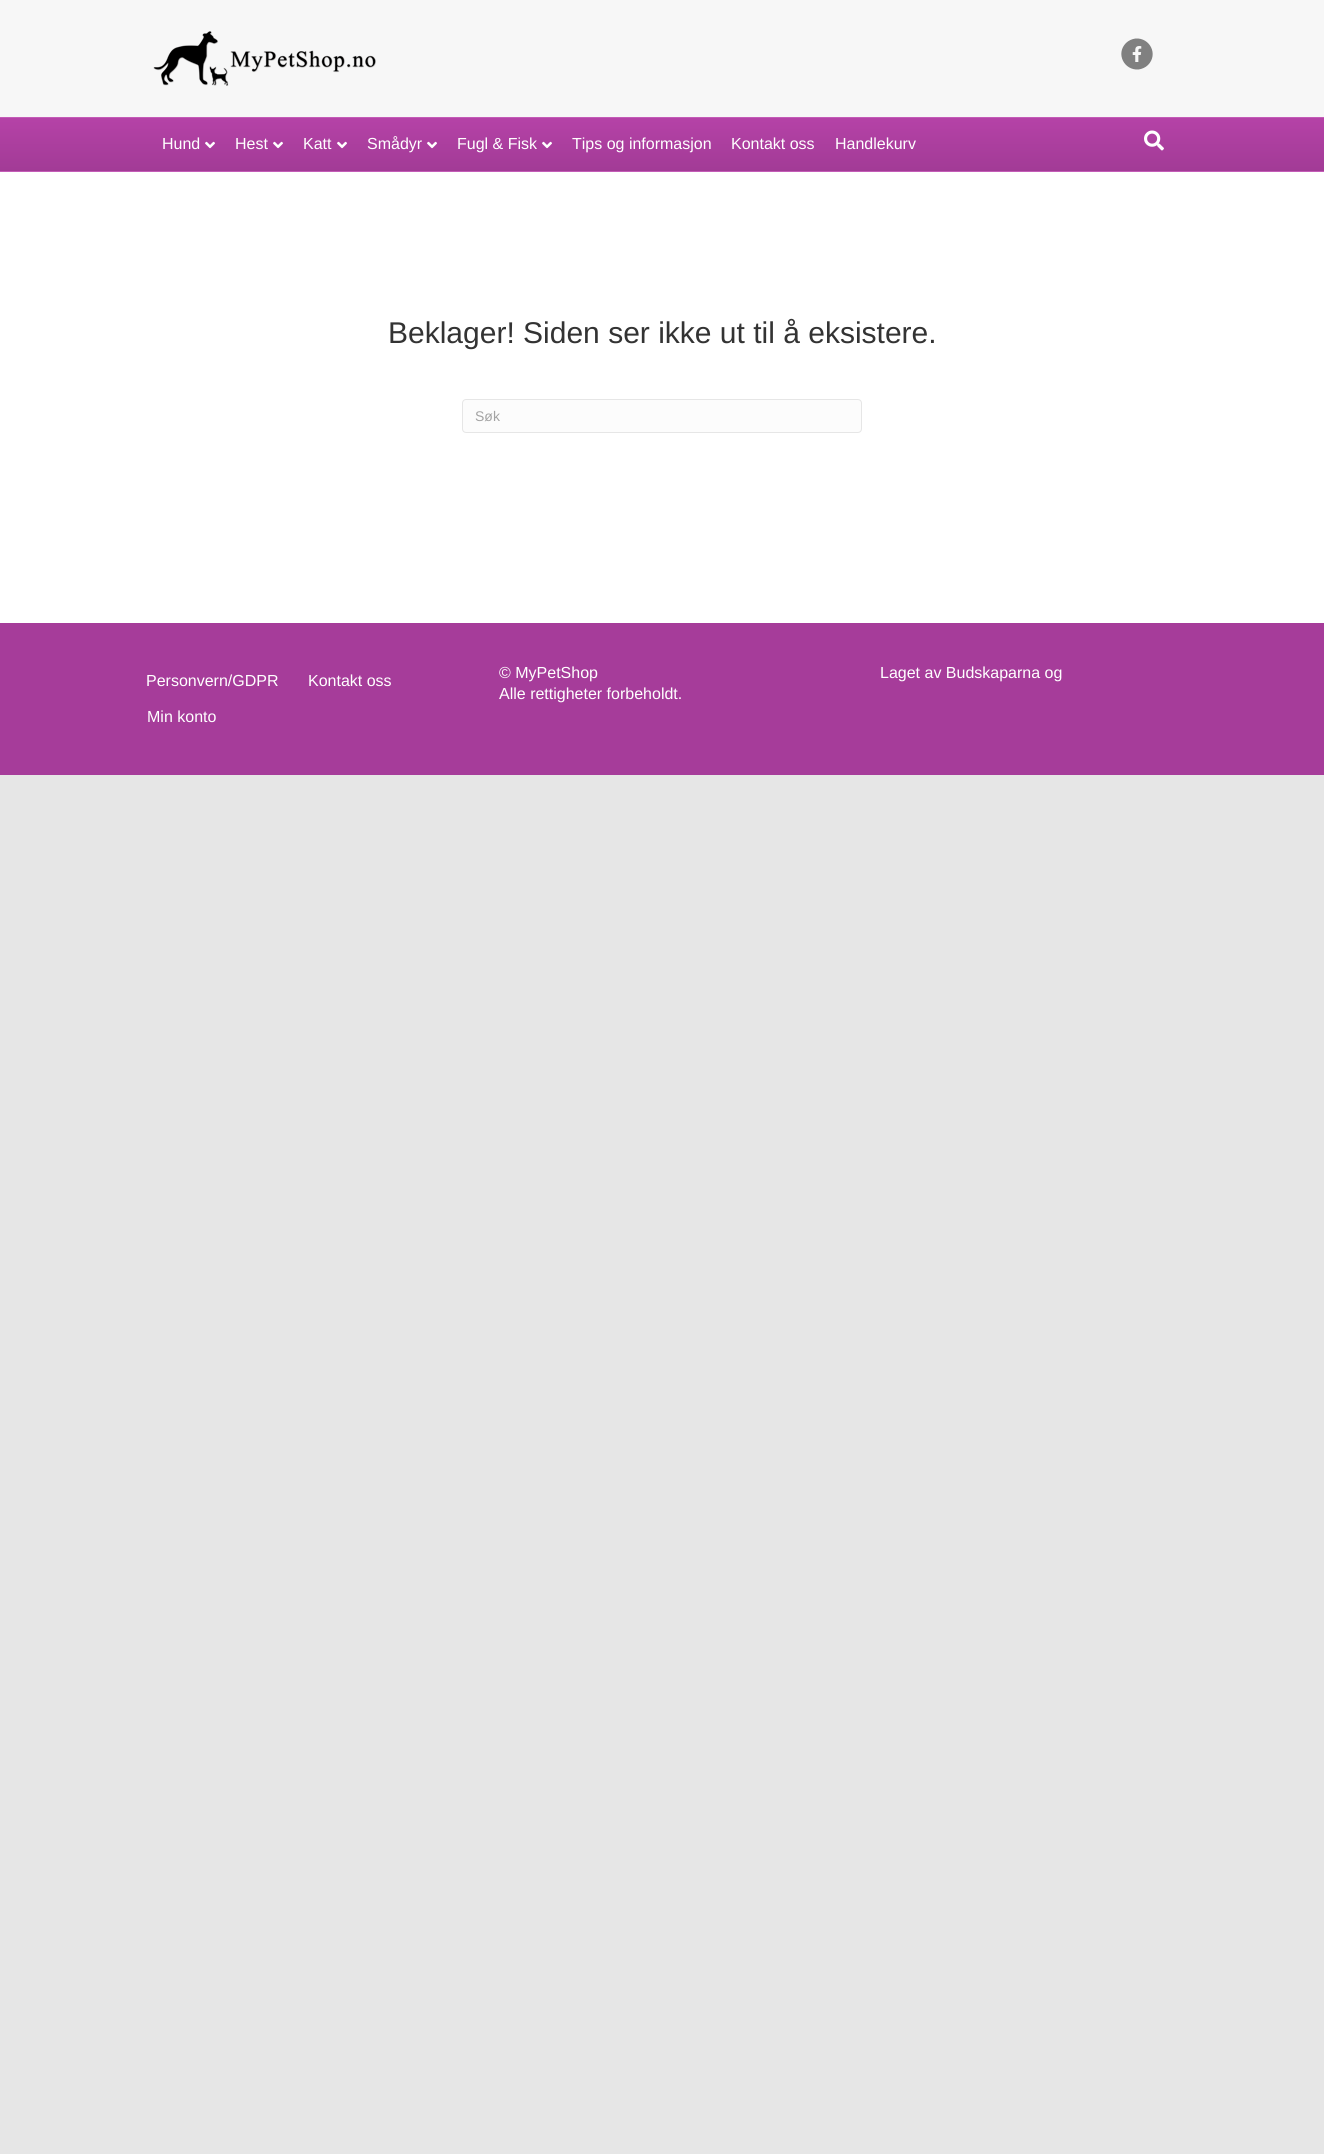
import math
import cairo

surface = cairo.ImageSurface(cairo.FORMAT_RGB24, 1324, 2154)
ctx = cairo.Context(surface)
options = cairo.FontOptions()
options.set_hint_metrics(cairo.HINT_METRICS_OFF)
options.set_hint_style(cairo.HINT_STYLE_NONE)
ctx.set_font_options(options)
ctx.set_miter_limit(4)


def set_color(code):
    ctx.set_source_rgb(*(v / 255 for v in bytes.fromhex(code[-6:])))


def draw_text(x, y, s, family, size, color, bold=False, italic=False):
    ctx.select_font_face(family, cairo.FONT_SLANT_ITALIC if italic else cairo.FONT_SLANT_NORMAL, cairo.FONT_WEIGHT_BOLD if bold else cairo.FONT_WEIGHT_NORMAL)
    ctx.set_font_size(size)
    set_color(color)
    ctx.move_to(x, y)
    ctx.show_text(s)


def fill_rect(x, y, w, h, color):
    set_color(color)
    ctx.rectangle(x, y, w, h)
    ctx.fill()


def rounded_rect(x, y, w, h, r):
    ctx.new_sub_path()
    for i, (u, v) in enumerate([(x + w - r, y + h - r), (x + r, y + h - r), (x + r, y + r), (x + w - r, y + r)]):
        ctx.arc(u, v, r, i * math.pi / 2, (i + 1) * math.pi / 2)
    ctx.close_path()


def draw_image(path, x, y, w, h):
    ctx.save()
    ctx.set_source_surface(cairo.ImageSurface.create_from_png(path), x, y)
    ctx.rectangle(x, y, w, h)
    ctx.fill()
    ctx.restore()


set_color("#e6e6e6")
ctx.paint()
fill_rect(0, 0, 1324, 117, "#f7f7f7")
draw_image("assets/img1.png", 153, 31, 223, 55)
set_color("#808080")
ctx.new_path()
ctx.move_to(1126, 43)
ctx.curve_to(1128.5, 40.5, 1132, 39, 1135.5, 38.5)
ctx.curve_to(1150, 37.5, 1158.5, 54.5, 1148, 65)
ctx.curve_to(1145.5, 67.5, 1142, 69, 1138.5, 69.5)
ctx.curve_to(1124, 70.5, 1115.5, 53.5, 1126, 43)
ctx.close_path()
ctx.fill()
draw_image("assets/img2.png", 1132, 46, 10, 16)
gradient = cairo.LinearGradient(662, 118, 662, 171)
gradient.add_color_stop_rgba(0, 0.71, 0.259, 0.655, 1)
gradient.add_color_stop_rgba(1, 0.635, 0.231, 0.588, 1)
ctx.set_source(gradient)
ctx.rectangle(0, 118, 1324, 53)
ctx.fill()
fill_rect(0, 117, 1324, 1, "#c45cb7")
fill_rect(0, 171, 1324, 1, "#c45cb7")
draw_text(162, 149, "Hund", "Liberation Sans", 16, "#ffffff")
draw_image("assets/img3.png", 205, 141, 10, 8)
draw_text(235, 149, "Hest", "Liberation Sans", 16, "#ffffff")
draw_image("assets/img3.png", 273, 141, 10, 8)
draw_text(303, 149, "Katt", "Liberation Sans", 16, "#ffffff")
draw_image("assets/img3.png", 337, 141, 10, 8)
draw_text(367, 149, "Smådyr", "Liberation Sans", 16, "#ffffff")
draw_image("assets/img3.png", 427, 141, 10, 8)
draw_text(457, 149, "Fugl & Fisk", "Liberation Sans", 16, "#ffffff")
draw_image("assets/img3.png", 542, 141, 10, 8)
draw_text(572, 149, "Tips og informasjon", "Liberation Sans", 16, "#ffffff")
draw_text(731, 149, "Kontakt oss", "Liberation Sans", 16, "#ffffff")
draw_text(835, 149, "Handlekurv", "Liberation Sans", 16, "#ffffff")
draw_image("assets/img4.png", 1144, 130, 20, 21)
fill_rect(0, 172, 1324, 451, "#ffffff")
draw_text(388, 343, "Beklager! Siden ser ikke ut til å eksistere.", "Liberation Sans", 30, "#333333")
set_color("#fcfcfc")
rounded_rect(462.5, 399.5, 399, 33, 3.5)
ctx.fill_preserve()
set_color("#e6e6e6")
ctx.set_line_width(1)
ctx.stroke()
draw_text(475, 421, "Søk", "Liberation Sans", 14, "#a3a3a3")
fill_rect(0, 623, 1324, 152, "#a63c9a")
draw_text(146, 686, "Personvern/GDPR", "Liberation Sans", 16, "#ffffff")
draw_text(308, 686, "Kontakt oss", "Liberation Sans", 16, "#ffffff")
draw_text(147, 722, "Min konto", "Liberation Sans", 16, "#ffffff")
draw_text(499, 678, "© MyPetShop", "Liberation Sans", 16, "#ffffff")
draw_text(499, 699, "Alle rettigheter forbeholdt.", "Liberation Sans", 16, "#ffffff")
draw_text(880, 678, "Laget av Budskaparna og", "Liberation Sans", 16, "#ffffff")
surface.write_to_png("output.png")
